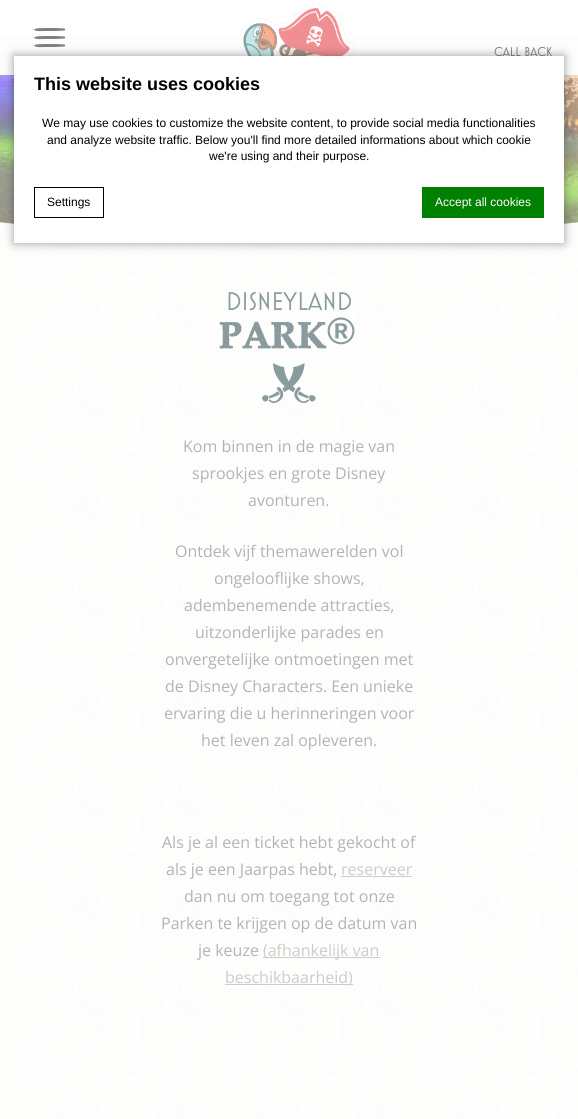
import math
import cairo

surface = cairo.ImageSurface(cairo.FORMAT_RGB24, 578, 1119)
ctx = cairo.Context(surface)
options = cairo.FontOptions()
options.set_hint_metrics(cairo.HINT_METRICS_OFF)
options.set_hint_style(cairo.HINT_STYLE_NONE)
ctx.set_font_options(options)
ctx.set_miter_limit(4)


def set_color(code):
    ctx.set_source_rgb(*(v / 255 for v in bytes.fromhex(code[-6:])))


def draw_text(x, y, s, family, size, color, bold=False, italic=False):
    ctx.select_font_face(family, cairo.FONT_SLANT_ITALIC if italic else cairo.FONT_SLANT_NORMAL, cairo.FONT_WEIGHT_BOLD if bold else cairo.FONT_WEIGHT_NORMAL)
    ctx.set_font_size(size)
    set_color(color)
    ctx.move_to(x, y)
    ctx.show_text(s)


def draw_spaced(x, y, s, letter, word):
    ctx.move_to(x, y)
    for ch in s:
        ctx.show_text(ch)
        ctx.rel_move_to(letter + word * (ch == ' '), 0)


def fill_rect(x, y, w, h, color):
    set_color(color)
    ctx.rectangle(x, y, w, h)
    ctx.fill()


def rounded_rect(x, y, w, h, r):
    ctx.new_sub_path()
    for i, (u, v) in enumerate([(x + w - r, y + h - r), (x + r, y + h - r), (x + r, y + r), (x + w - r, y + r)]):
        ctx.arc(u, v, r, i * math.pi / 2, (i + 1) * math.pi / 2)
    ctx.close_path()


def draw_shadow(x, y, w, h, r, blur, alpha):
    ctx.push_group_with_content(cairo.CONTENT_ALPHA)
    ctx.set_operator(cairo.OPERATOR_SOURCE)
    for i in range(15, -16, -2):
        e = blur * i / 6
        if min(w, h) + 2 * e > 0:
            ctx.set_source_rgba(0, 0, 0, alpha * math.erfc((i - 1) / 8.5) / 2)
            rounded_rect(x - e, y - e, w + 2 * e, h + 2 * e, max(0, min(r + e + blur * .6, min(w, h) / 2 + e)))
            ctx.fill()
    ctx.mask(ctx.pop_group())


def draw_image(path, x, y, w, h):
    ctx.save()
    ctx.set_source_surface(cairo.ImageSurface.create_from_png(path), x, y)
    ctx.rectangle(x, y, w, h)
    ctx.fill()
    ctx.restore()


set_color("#ffffff")
ctx.paint()
draw_image("assets/img1.png", 0, 239, 578, 880)
draw_image("assets/img3.png", 0, 222, 578, 17)
draw_image("assets/img4.png", 0, 75, 578, 149)
set_color("#808080")
draw_shadow(-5, -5, 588, 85, 0, 5, 0.1)
fill_rect(0, 0, 578, 37, "#ffffff")
fill_rect(0, 37, 578, 38, "#fdfdfd")
set_color("#808080")
ctx.new_path()
ctx.move_to(44, 36)
ctx.line_to(56, 36)
ctx.line_to(64.5, 36.5)
ctx.curve_to(65.5, 37, 65.5, 38, 64.5, 38.5)
ctx.line_to(56, 39)
ctx.line_to(44, 39)
ctx.curve_to(41.5, 39, 37.5, 39.5, 35, 38.5)
ctx.curve_to(32.5, 37, 36, 36, 44, 36)
ctx.close_path()
ctx.move_to(44, 28)
ctx.line_to(56, 28)
ctx.line_to(64.5, 28.5)
ctx.curve_to(65.5, 29, 65.5, 30, 64.5, 30.5)
ctx.line_to(56, 31)
ctx.line_to(44, 31)
ctx.curve_to(41.5, 31, 37.5, 31.5, 35, 30.5)
ctx.curve_to(32.5, 29, 36, 28, 44, 28)
ctx.close_path()
ctx.move_to(44, 44)
ctx.line_to(56, 44)
ctx.line_to(64.5, 44.5)
ctx.curve_to(65.5, 45, 65.5, 46, 64.5, 46.5)
ctx.line_to(56, 47)
ctx.line_to(44, 47)
ctx.curve_to(41.5, 47, 37.5, 47.5, 35, 46.5)
ctx.curve_to(32.5, 45, 36, 44, 44, 44)
ctx.close_path()
ctx.fill()
draw_image("assets/img2.png", 239, 4, 115, 52)
draw_text(494, 56, "Call back", "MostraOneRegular", 13, "#808080")
set_color("#000000")
draw_shadow(14, 56, 550, 187, 0, 5, 0.4)
fill_rect(14, 56, 550, 187, "#ffffff")
draw_text(34, 90, "This website uses cookies", "Liberation Sans", 18, "#000000", bold=True)
draw_text(42, 127, "We may use cookies to customize the website content, to provide social media functionalities", "Liberation Sans", 12, "#000000")
draw_text(47, 144, "and analyze website traffic. Below you'll find more detailed informations about which cookie", "Liberation Sans", 12, "#000000")
draw_text(209, 160, "we're using and their purpose.", "Liberation Sans", 12, "#000000")
ctx.rectangle(34.5, 187.5, 69, 30)
ctx.set_line_width(1)
ctx.stroke()
draw_text(47, 206, "Settings", "Liberation Sans", 12, "#000000")
fill_rect(422, 187, 122, 31, "#008000")
draw_text(435, 206, "Accept all cookies", "Liberation Sans", 12, "#ffffff")
draw_image("assets/img5.png", 52, 327, 501, 701)
draw_text(226, 310, "DISNEYLAND", "MostraOneRegular", 26, "#899b9d")
ctx.select_font_face("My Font", cairo.FONT_SLANT_NORMAL, cairo.FONT_WEIGHT_BOLD)
ctx.set_font_size(38)
draw_spaced(220, 344, "PARK", 3, 0)
ctx.select_font_face("Liberation Sans", cairo.FONT_SLANT_NORMAL, cairo.FONT_WEIGHT_BOLD)
draw_spaced(327, 344, "®", 3, 0)
draw_image("assets/img6.png", 262, 363, 54, 40)
draw_text(183, 452, "Kom binnen in de magie van", "Open Sans", 16, "#b1b4b7")
draw_text(192, 479, "sprookjes en grote Disney", "Open Sans", 16, "#b1b4b7")
draw_text(248, 506, "avonturen.", "Open Sans", 16, "#b1b4b7")
draw_text(175, 557, "Ontdek vijf themawerelden vol", "Open Sans", 16, "#b1b4b7")
draw_text(214, 584, "ongelooflijke shows,", "Open Sans", 16, "#b1b4b7")
draw_text(184, 611, "adembenemende attracties,", "Open Sans", 16, "#b1b4b7")
draw_text(195, 638, "uitzonderlijke parades en", "Open Sans", 16, "#b1b4b7")
draw_text(165, 665, "onvergetelijke ontmoetingen met", "Open Sans", 16, "#b1b4b7")
draw_text(165, 692, "de Disney Characters. Een unieke", "Open Sans", 16, "#b1b4b7")
draw_text(164, 719, "ervaring die u herinneringen voor", "Open Sans", 16, "#b1b4b7")
draw_text(201, 746, "het leven zal opleveren.", "Open Sans", 16, "#b1b4b7")
draw_text(162, 848, "Als je al een ticket hebt gekocht of", "Open Sans", 16, "#b1b4b7")
draw_text(166, 875, "als je een Jaarpas hebt,", "Open Sans", 16, "#b1b4b7")
draw_text(341, 875, "reserveer", "Open Sans", 16, "#cccccc")
fill_rect(341, 876, 71, 1, "#cccccc")
draw_text(184, 902, "dan nu om toegang tot onze", "Open Sans", 16, "#b1b4b7")
draw_text(161, 929, "Parken te krijgen op de datum van", "Open Sans", 16, "#b1b4b7")
draw_text(198, 956, "je keuze", "Open Sans", 16, "#b1b4b7")
fill_rect(263, 957, 117, 1, "#cccccc")
draw_text(263, 956, "(afhankelijk van", "Open Sans", 16, "#cccccc")
fill_rect(225, 984, 128, 1, "#cccccc")
draw_text(225, 983, "beschikbaarheid)", "Open Sans", 16, "#cccccc")
surface.write_to_png("output.png")
